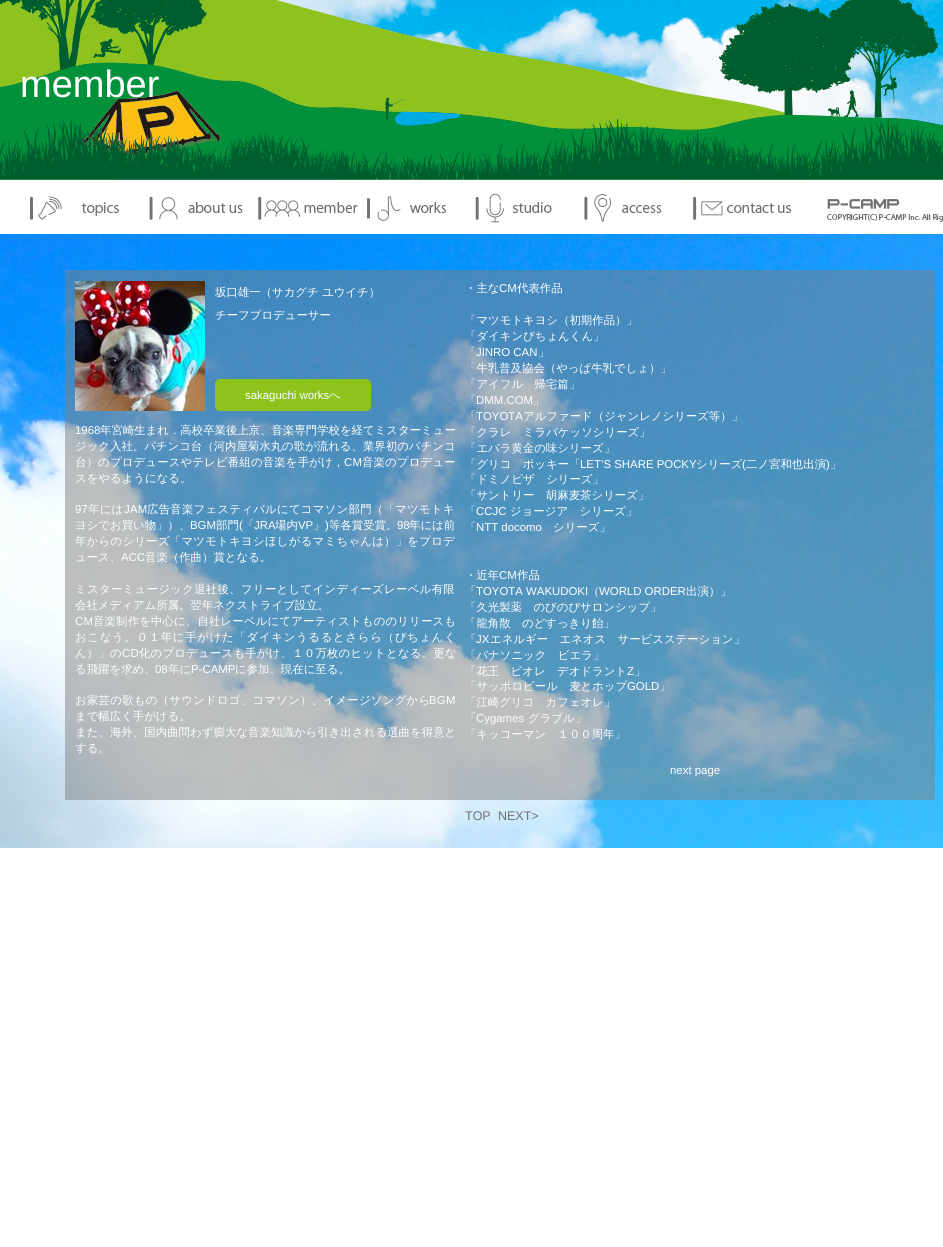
import math
import cairo

surface = cairo.ImageSurface(cairo.FORMAT_RGB24, 943, 1247)
ctx = cairo.Context(surface)
options = cairo.FontOptions()
options.set_hint_metrics(cairo.HINT_METRICS_OFF)
options.set_hint_style(cairo.HINT_STYLE_NONE)
ctx.set_font_options(options)
ctx.set_miter_limit(4)


def set_color(code):
    ctx.set_source_rgb(*(v / 255 for v in bytes.fromhex(code[-6:])))


def draw_text(x, y, s, family, size, color, bold=False, italic=False):
    ctx.select_font_face(family, cairo.FONT_SLANT_ITALIC if italic else cairo.FONT_SLANT_NORMAL, cairo.FONT_WEIGHT_BOLD if bold else cairo.FONT_WEIGHT_NORMAL)
    ctx.set_font_size(size)
    set_color(color)
    ctx.move_to(x, y)
    ctx.show_text(s)


def draw_spaced(x, y, s, letter, word):
    ctx.move_to(x, y)
    for ch in s:
        ctx.show_text(ch)
        ctx.rel_move_to(letter + word * (ch == ' '), 0)


def rounded_rect(x, y, w, h, r):
    ctx.new_sub_path()
    for i, (u, v) in enumerate([(x + w - r, y + h - r), (x + r, y + h - r), (x + r, y + r), (x + w - r, y + r)]):
        ctx.arc(u, v, r, i * math.pi / 2, (i + 1) * math.pi / 2)
    ctx.close_path()


def draw_image(path, x, y, w, h):
    ctx.save()
    ctx.set_source_surface(cairo.ImageSurface.create_from_png(path), x, y)
    ctx.rectangle(x, y, w, h)
    ctx.fill()
    ctx.restore()


set_color("#ffffff")
ctx.paint()
draw_image("assets/img1.png", 0, 0, 943, 180)
draw_text(20, 97, "member", "Liberation Sans", 38, "#ffffff")
draw_image("assets/img2.png", 30, 193, 761, 30)
draw_image("assets/img3.png", 827, 199, 116, 23)
draw_image("assets/img4.png", 0, 234, 943, 614)
ctx.set_source_rgba(0.506, 0.506, 0.506, 0.5)
ctx.rectangle(65, 270, 870, 530)
ctx.fill()
draw_image("assets/img5.png", 75, 281, 130, 130)
draw_text(215, 296, "坂口雄一（サカグチ ユウイチ）", "WenQuanYi Zen Hei Medium", 11.4, "#ffffff")
draw_text(215, 319, "チーフプロデューサー", "WenQuanYi Zen Hei Medium", 11.4, "#ffffff")
set_color("#8ec31e")
rounded_rect(215, 379, 156, 32, 5)
ctx.fill()
draw_text(245, 399, "sakaguchi works", "Liberation Sans", 11.4, "#ffffff")
draw_text(329, 399, "へ", "WenQuanYi Zen Hei Medium", 11.4, "#ffffff")
draw_text(75, 434, "1968", "Liberation Sans", 11.4, "#ffffff")
draw_text(100, 434, "年宮崎生まれ．高校卒業後上京、音楽専門学校を経てミスターミュー", "WenQuanYi Zen Hei Medium", 11.4, "#ffffff")
draw_text(75, 450, "ジック入社。パチンコ台（河内屋菊水丸の歌が流れる、業界初のパチンコ", "WenQuanYi Zen Hei Medium", 11.4, "#ffffff")
draw_spaced(75, 466, "台）のプロデュースやテレビ番組の音楽を手がけ，", 0.15, 0)
ctx.select_font_face("Liberation Sans")
draw_spaced(344, 466, "CM", 0.15, 0)
ctx.select_font_face("WenQuanYi Zen Hei Medium")
draw_spaced(362, 466, "音楽のプロデュー", 0.15, 0)
draw_text(75, 482, "スをやるようになる。", "WenQuanYi Zen Hei Medium", 11.4, "#ffffff")
ctx.select_font_face("Liberation Sans")
draw_spaced(75, 513, "97", 0.25, 0)
ctx.select_font_face("WenQuanYi Zen Hei Medium")
draw_spaced(88, 513, "年には", 0.25, 0)
ctx.select_font_face("Liberation Sans")
draw_spaced(124, 513, "JAM", 0.25, 0)
ctx.select_font_face("WenQuanYi Zen Hei Medium")
draw_spaced(147, 513, "広告音楽フェスティバルにてコマソン部門（「マツモトキ", 0.25, 0)
draw_text(75, 529, "ヨシでお買い物」）、", "WenQuanYi Zen Hei Medium", 11.4, "#ffffff")
draw_text(190, 529, "BGM", "Liberation Sans", 11.4, "#ffffff")
draw_text(216, 529, "部門", "WenQuanYi Zen Hei Medium", 11.4, "#ffffff")
draw_text(239, 529, "(", "Liberation Sans", 11.4, "#ffffff")
draw_text(243, 529, "「", "WenQuanYi Zen Hei Medium", 11.4, "#ffffff")
draw_text(254, 529, "JRA", "Liberation Sans", 11.4, "#ffffff")
draw_text(275, 529, "場内", "WenQuanYi Zen Hei Medium", 11.4, "#ffffff")
draw_text(298, 529, "VP", "Liberation Sans", 11.4, "#ffffff")
draw_text(313, 529, "」", "WenQuanYi Zen Hei Medium", 11.4, "#ffffff")
draw_text(325, 529, ")", "Liberation Sans", 11.4, "#ffffff")
draw_text(329, 529, "等各賞受賞。", "WenQuanYi Zen Hei Medium", 11.4, "#ffffff")
draw_text(397, 529, "98", "Liberation Sans", 11.4, "#ffffff")
draw_text(409, 529, "年には前", "WenQuanYi Zen Hei Medium", 11.4, "#ffffff")
draw_spaced(75, 545, "年からのシリーズ「マツモトキヨシほしがるマミちゃんは）」をプロデ", 0.25, 0)
draw_text(75, 561, "ュース、", "WenQuanYi Zen Hei Medium", 11.4, "#ffffff")
draw_text(121, 561, "ACC", "Liberation Sans", 11.4, "#ffffff")
draw_text(145, 561, "音楽（作曲）賞となる。", "WenQuanYi Zen Hei Medium", 11.4, "#ffffff")
draw_spaced(75, 593, "ミスターミュージック退社後、フリーとしてインディーズレーベル有限", 0.3, 0)
draw_text(75, 609, "会社メディアム所属。翌年ネクストライブ設立。", "WenQuanYi Zen Hei Medium", 11.4, "#ffffff")
ctx.select_font_face("Liberation Sans")
draw_spaced(75, 625, "CM", 0.15, 0)
ctx.select_font_face("WenQuanYi Zen Hei Medium")
draw_spaced(93, 625, "音楽制作を中心に、自社レーベルにてアーティストもののリリースも", 0.15, 0)
draw_spaced(75, 641, "おこなう。０１年に手がけた「ダイキンうるるとさらら（ぴちょんく", 0.7, 0)
draw_spaced(75, 657, "ん）」の", 0.2, 0)
ctx.select_font_face("Liberation Sans")
draw_spaced(122, 657, "CD", 0.2, 0)
ctx.select_font_face("WenQuanYi Zen Hei Medium")
draw_spaced(139, 657, "化のプロデュースも手がけ、１０万枚のヒットとなる。更な", 0.2, 0)
draw_text(75, 673, "る飛躍を求め、", "WenQuanYi Zen Hei Medium", 11.4, "#ffffff")
draw_text(155, 673, "08", "Liberation Sans", 11.4, "#ffffff")
draw_text(168, 673, "年に", "WenQuanYi Zen Hei Medium", 11.4, "#ffffff")
draw_text(191, 673, "P-CAMP", "Liberation Sans", 11.4, "#ffffff")
draw_text(235, 673, "に参加、現在に至る。", "WenQuanYi Zen Hei Medium", 11.4, "#ffffff")
draw_spaced(75, 704, "お家芸の歌もの（サウンドロゴ、コマソン）、イメージソングから", 0.25, 0)
ctx.select_font_face("Liberation Sans")
draw_spaced(429, 704, "BGM", 0.25, 0)
draw_text(75, 720, "まで幅広く手がける。", "WenQuanYi Zen Hei Medium", 11.4, "#ffffff")
draw_spaced(75, 736, "また、海外、国内曲問わず膨大な音楽知識から引き出される選曲を得意と", 0.05, 0)
draw_text(75, 752, "する。", "WenQuanYi Zen Hei Medium", 11.4, "#ffffff")
draw_text(465, 292, "・主な", "WenQuanYi Zen Hei Medium", 11.4, "#ffffff")
draw_text(499, 292, "CM", "Liberation Sans", 11.4, "#ffffff")
draw_text(517, 292, "代表作品", "WenQuanYi Zen Hei Medium", 11.4, "#ffffff")
draw_text(465, 324, "「マツモトキヨシ（初期作品）」", "WenQuanYi Zen Hei Medium", 11.4, "#ffffff")
draw_text(465, 340, "「ダイキンぴちょんくん」", "WenQuanYi Zen Hei Medium", 11.4, "#ffffff")
draw_text(465, 356, "「", "WenQuanYi Zen Hei Medium", 11.4, "#ffffff")
draw_text(476, 356, "JINRO CAN", "Liberation Sans", 11.4, "#ffffff")
draw_text(538, 356, "」", "WenQuanYi Zen Hei Medium", 11.4, "#ffffff")
draw_text(465, 372, "「牛乳普及協会（やっぱ牛乳でしょ）」", "WenQuanYi Zen Hei Medium", 11.4, "#ffffff")
draw_text(465, 388, "「アイフル　帰宅篇」", "WenQuanYi Zen Hei Medium", 11.4, "#ffffff")
draw_text(465, 404, "「", "WenQuanYi Zen Hei Medium", 11.4, "#ffffff")
draw_text(476, 404, "DMM.COM", "Liberation Sans", 11.4, "#ffffff")
draw_text(533, 404, "」", "WenQuanYi Zen Hei Medium", 11.4, "#ffffff")
draw_text(465, 420, "「", "WenQuanYi Zen Hei Medium", 11.4, "#ffffff")
draw_text(476, 420, "TOYOTA", "Liberation Sans", 11.4, "#ffffff")
draw_text(523, 420, "アルファード（ジャンレノシリーズ等）」", "WenQuanYi Zen Hei Medium", 11.4, "#ffffff")
draw_text(465, 436, "「クラレ　ミラバケッソシリーズ」", "WenQuanYi Zen Hei Medium", 11.4, "#ffffff")
draw_text(465, 452, "「エバラ黄金の味シリーズ」", "WenQuanYi Zen Hei Medium", 11.4, "#ffffff")
draw_text(465, 468, "「グリコ　ポッキー「", "WenQuanYi Zen Hei Medium", 11.4, "#ffffff")
draw_text(580, 468, "LET’S SHARE POCKY", "Liberation Sans", 11.4, "#ffffff")
draw_text(696, 468, "シリーズ", "WenQuanYi Zen Hei Medium", 11.4, "#ffffff")
draw_text(742, 468, "(", "Liberation Sans", 11.4, "#ffffff")
draw_text(746, 468, "二ノ宮和也出演", "WenQuanYi Zen Hei Medium", 11.4, "#ffffff")
draw_text(826, 468, ")", "Liberation Sans", 11.4, "#ffffff")
draw_text(830, 468, "」", "WenQuanYi Zen Hei Medium", 11.4, "#ffffff")
draw_text(465, 483, "「ドミノピザ　シリーズ」", "WenQuanYi Zen Hei Medium", 11.4, "#ffffff")
draw_text(465, 499, "「サントリー　胡麻麦茶シリーズ」", "WenQuanYi Zen Hei Medium", 11.4, "#ffffff")
draw_text(465, 515, "「", "WenQuanYi Zen Hei Medium", 11.4, "#ffffff")
draw_text(476, 515, "CCJC", "Liberation Sans", 11.4, "#ffffff")
draw_text(510, 515, "ジョージア　シリーズ」", "WenQuanYi Zen Hei Medium", 11.4, "#ffffff")
draw_text(465, 531, "「", "WenQuanYi Zen Hei Medium", 11.4, "#ffffff")
draw_text(476, 531, "NTT docomo", "Liberation Sans", 11.4, "#ffffff")
draw_text(553, 531, "シリーズ」", "WenQuanYi Zen Hei Medium", 11.4, "#ffffff")
draw_text(465, 579, "・近年", "WenQuanYi Zen Hei Medium", 11.4, "#ffffff")
draw_text(499, 579, "CM", "Liberation Sans", 11.4, "#ffffff")
draw_text(517, 579, "作品", "WenQuanYi Zen Hei Medium", 11.4, "#ffffff")
draw_text(465, 595, "「", "WenQuanYi Zen Hei Medium", 11.4, "#ffffff")
draw_text(476, 595, "TOYOTA WAKUDOKI", "Liberation Sans", 11.4, "#ffffff")
draw_text(588, 595, "（", "WenQuanYi Zen Hei Medium", 11.4, "#ffffff")
draw_text(599, 595, "WORLD ORDER", "Liberation Sans", 11.4, "#ffffff")
draw_text(686, 595, "出演）」", "WenQuanYi Zen Hei Medium", 11.4, "#ffffff")
draw_text(465, 611, "「久光製薬　のびのびサロンシップ」", "WenQuanYi Zen Hei Medium", 11.4, "#ffffff")
draw_text(465, 627, "「龍角散　のどすっきり飴」", "WenQuanYi Zen Hei Medium", 11.4, "#ffffff")
draw_text(465, 643, "「", "WenQuanYi Zen Hei Medium", 11.4, "#ffffff")
draw_text(476, 643, "JX", "Liberation Sans", 11.4, "#ffffff")
draw_text(490, 643, "エネルギー　エネオス　サービスステーション」", "WenQuanYi Zen Hei Medium", 11.4, "#ffffff")
draw_text(465, 659, "「パナソニック　ビエラ」", "WenQuanYi Zen Hei Medium", 11.4, "#ffffff")
draw_text(465, 675, "「花王　ビオレ　デオドラント", "WenQuanYi Zen Hei Medium", 11.4, "#ffffff")
draw_text(627, 675, "Z", "Liberation Sans", 11.4, "#ffffff")
draw_text(634, 675, "」", "WenQuanYi Zen Hei Medium", 11.4, "#ffffff")
draw_text(465, 690, "「サッポロビール　麦とホップ", "WenQuanYi Zen Hei Medium", 11.4, "#ffffff")
draw_text(627, 690, "GOLD", "Liberation Sans", 11.4, "#ffffff")
draw_text(659, 690, "」", "WenQuanYi Zen Hei Medium", 11.4, "#ffffff")
draw_text(465, 706, "「江崎グリコ　カフェオレ」", "WenQuanYi Zen Hei Medium", 11.4, "#ffffff")
draw_text(465, 722, "「", "WenQuanYi Zen Hei Medium", 11.4, "#ffffff")
draw_text(476, 722, "Cygames", "Liberation Sans", 11.4, "#ffffff")
draw_text(528, 722, "グラブル」", "WenQuanYi Zen Hei Medium", 11.4, "#ffffff")
draw_text(465, 738, "「キッコーマン　１００周年」", "WenQuanYi Zen Hei Medium", 11.4, "#ffffff")
draw_text(670, 774, "next page", "Liberation Sans", 11.4, "#ffffff")
draw_text(465, 820, "TOP", "Liberation Sans", 12.5, "#717071")
draw_text(498, 820, "NEXT>", "Liberation Sans", 12.5, "#717071")
surface.write_to_png("output.png")
